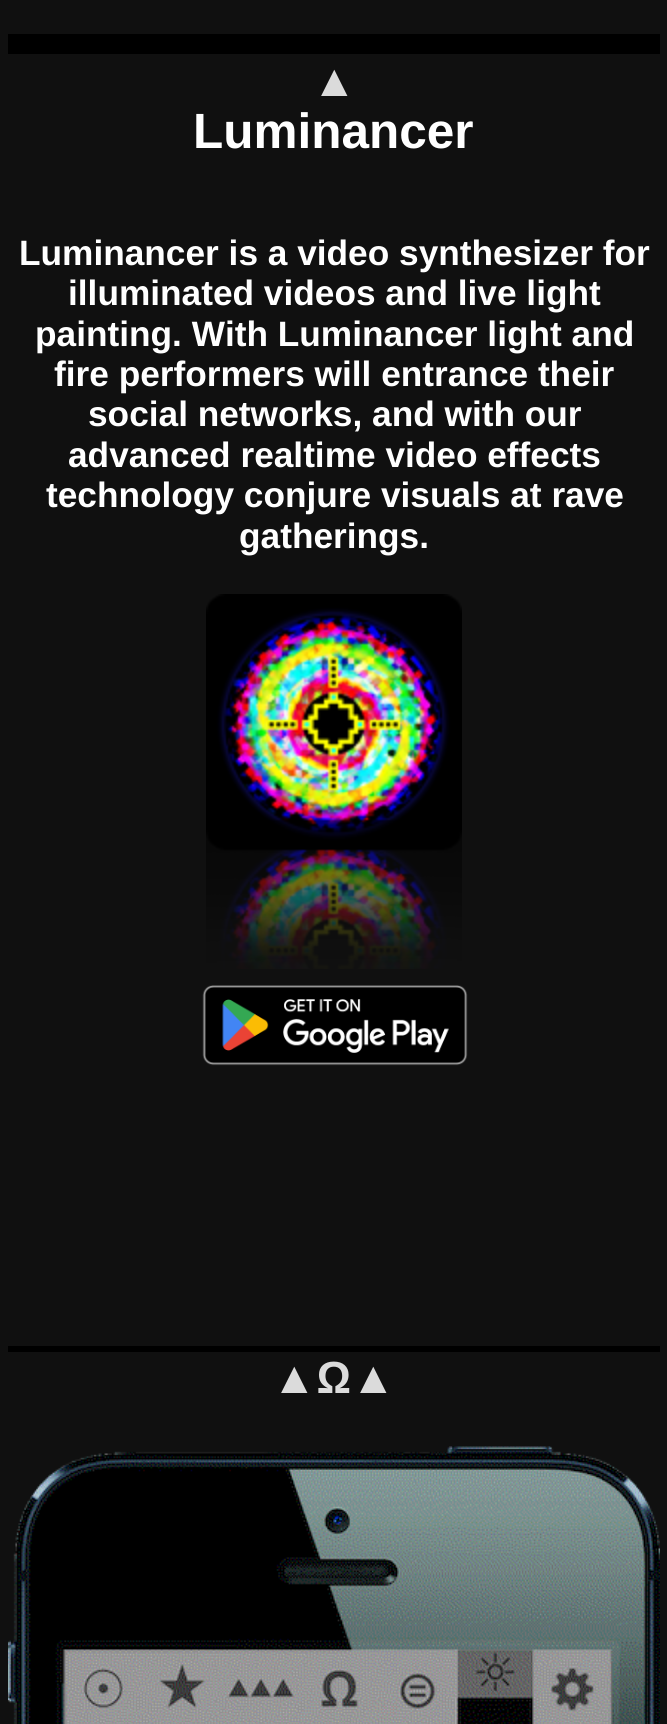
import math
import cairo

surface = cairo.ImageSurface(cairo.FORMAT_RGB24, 667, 1724)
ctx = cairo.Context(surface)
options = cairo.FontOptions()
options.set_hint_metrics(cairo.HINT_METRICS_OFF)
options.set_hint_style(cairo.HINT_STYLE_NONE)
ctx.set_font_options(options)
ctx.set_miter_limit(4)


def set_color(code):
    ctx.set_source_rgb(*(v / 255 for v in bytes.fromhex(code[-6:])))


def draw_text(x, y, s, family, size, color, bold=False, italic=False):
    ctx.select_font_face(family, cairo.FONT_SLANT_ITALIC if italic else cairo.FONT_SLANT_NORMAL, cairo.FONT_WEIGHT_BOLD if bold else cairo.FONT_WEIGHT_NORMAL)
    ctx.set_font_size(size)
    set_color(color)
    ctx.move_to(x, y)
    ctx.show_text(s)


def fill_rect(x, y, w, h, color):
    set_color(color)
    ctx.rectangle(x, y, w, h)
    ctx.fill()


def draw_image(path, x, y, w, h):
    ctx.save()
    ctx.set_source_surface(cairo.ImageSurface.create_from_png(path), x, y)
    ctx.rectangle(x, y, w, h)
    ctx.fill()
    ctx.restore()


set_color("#101010")
ctx.paint()
fill_rect(8, 34, 652, 20, "#000000")
draw_text(312, 96, "▲", "Liberation Sans", 45, "#dbdbdb", bold=True)
draw_text(193, 148, "Luminancer", "Liberation Sans", 49.5, "#ffffff", bold=True)
draw_text(19, 265, "Luminancer is a video synthesizer for", "Liberation Sans", 35.25, "#ffffff", bold=True)
draw_text(68, 305, "illuminated videos and live light", "Liberation Sans", 35.25, "#ffffff", bold=True)
draw_text(35, 346, "painting. With Luminancer light and", "Liberation Sans", 35.25, "#ffffff", bold=True)
draw_text(54, 386, "fire performers will entrance their", "Liberation Sans", 35.25, "#ffffff", bold=True)
draw_text(88, 426, "social networks, and with our", "Liberation Sans", 35.25, "#ffffff", bold=True)
draw_text(68, 467, "advanced realtime video effects", "Liberation Sans", 35.25, "#ffffff", bold=True)
draw_text(46, 507, "technology conjure visuals at rave", "Liberation Sans", 35.25, "#ffffff", bold=True)
draw_text(239, 548, "gatherings.", "Liberation Sans", 35.25, "#ffffff", bold=True)
draw_image("assets/img1.png", 206, 594, 256, 375)
draw_image("assets/img2.png", 202, 985, 266, 81)
fill_rect(8, 1346, 652, 6, "#000000")
draw_text(272, 1393, "▲Ω▲", "Liberation Sans", 45, "#dbdbdb", bold=True)
draw_image("assets/img3.png", 8, 1446, 652, 278)
surface.write_to_png("output.png")
